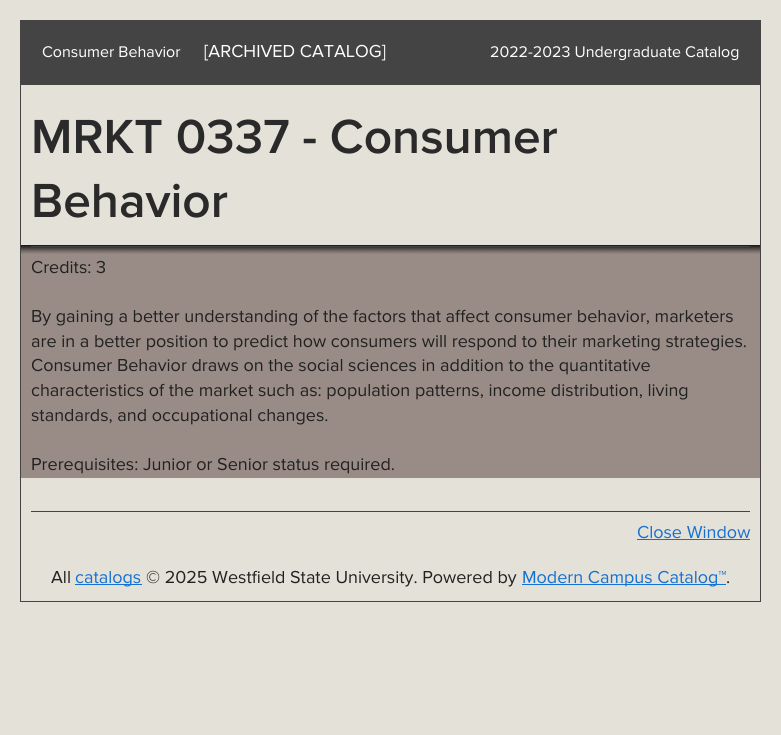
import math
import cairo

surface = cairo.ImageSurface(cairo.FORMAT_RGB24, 781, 735)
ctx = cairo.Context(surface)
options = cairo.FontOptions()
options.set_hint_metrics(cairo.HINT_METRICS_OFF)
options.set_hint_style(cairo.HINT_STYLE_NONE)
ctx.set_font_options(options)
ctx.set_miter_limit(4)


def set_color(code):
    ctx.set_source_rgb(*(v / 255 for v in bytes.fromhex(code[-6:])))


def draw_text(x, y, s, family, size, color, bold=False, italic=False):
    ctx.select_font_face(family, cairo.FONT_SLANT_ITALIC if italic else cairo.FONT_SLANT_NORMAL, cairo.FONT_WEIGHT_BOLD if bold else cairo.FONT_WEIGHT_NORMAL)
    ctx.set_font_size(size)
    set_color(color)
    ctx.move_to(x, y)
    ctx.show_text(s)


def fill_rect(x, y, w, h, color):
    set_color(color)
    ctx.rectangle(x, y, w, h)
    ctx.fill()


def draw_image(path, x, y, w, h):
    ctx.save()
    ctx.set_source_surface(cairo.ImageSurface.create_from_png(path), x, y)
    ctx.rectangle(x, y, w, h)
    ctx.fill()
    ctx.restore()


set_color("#e4e1d8")
ctx.paint()
draw_image("assets/img1.png", 21, 245, 739, 233)
ctx.rectangle(20.5, 20.5, 740, 581)
set_color("#444444")
ctx.set_line_width(1)
ctx.stroke()
fill_rect(21, 21, 739, 64, "#444444")
draw_text(42, 57, "Consumer Behavior", "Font", 16, "#ffffff")
draw_text(204, 57, "[ARCHIVED CATALOG]", "Font", 18, "#ffffff")
draw_text(490, 57, "2022-2023 Undergraduate Catalog", "Font", 16, "#ffffff")
draw_text(31, 153, "MRKT 0337 - Consumer", "Proxima Nova SemiBold", 49.6, "#2a2a2a")
draw_text(31, 217, "Behavior", "Proxima Nova SemiBold", 49.6, "#2a2a2a")
fill_rect(31, 246, 719, 1, "#444444")
draw_text(31, 273, "Credits: 3", "Font", 18, "#212120")
draw_text(31, 322, "By gaining a better understanding of the factors that affect consumer behavior, marketers", "Font", 18, "#212120")
draw_text(31, 347, "are in a better position to predict how consumers will respond to their marketing strategies.", "Font", 18, "#212120")
draw_text(31, 371, "Consumer Behavior draws on the social sciences in addition to the quantitative", "Font", 18, "#212120")
draw_text(31, 396, "characteristics of the market such as: population patterns, income distribution, living", "Font", 18, "#212120")
draw_text(31, 421, "standards, and occupational changes.", "Font", 18, "#212120")
draw_text(31, 470, "Prerequisites: Junior or Senior status required.", "Font", 18, "#212120")
fill_rect(31, 511, 719, 1, "#444444")
draw_text(637, 538, "Close Window", "Font", 18, "#1471d2")
fill_rect(637, 539, 113, 1, "#1471d2")
draw_text(51, 583, "All", "Font", 18, "#212120")
fill_rect(75, 584, 67, 1, "#1471d2")
draw_text(75, 583, "catalogs", "Font", 18, "#1471d2")
draw_text(146, 583, "© 2025 Westfield State University. Powered by", "Font", 18, "#212120")
fill_rect(522, 584, 204, 1, "#1471d2")
draw_text(522, 583, "Modern Campus Catalog™", "Font", 18, "#1471d2")
draw_text(726, 583, ".", "Font", 18, "#212120")
surface.write_to_png("output.png")
